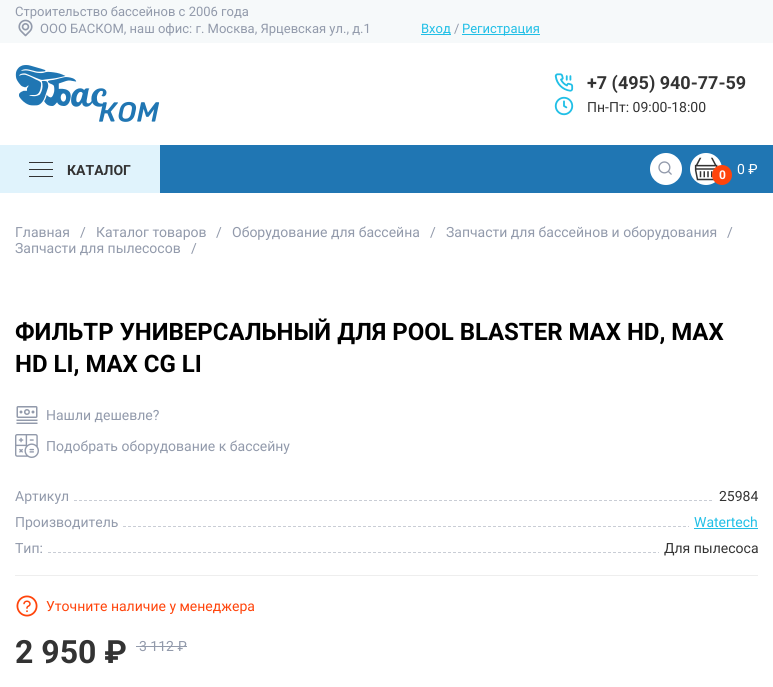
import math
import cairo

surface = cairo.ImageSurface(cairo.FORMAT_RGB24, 773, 687)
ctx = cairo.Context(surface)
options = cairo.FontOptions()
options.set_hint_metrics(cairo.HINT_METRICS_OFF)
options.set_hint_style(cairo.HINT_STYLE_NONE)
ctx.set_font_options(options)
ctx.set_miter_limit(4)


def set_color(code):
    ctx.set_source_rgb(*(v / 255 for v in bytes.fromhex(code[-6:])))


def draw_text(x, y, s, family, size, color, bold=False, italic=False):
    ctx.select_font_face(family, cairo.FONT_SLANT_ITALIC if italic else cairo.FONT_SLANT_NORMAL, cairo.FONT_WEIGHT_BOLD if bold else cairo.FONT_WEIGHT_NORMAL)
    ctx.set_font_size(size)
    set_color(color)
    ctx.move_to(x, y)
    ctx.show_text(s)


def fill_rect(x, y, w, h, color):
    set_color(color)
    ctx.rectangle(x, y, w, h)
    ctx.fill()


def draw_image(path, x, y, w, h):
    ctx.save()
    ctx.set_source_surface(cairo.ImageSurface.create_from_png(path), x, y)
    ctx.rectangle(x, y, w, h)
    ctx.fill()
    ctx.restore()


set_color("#ffffff")
ctx.paint()
fill_rect(0, 0, 773, 43, "#f6f9fa")
draw_text(15, 16, "Cтроительство бассейнов с 2006 года", "Roboto", 13, "#929aab")
draw_image("assets/img1.png", 18, 19, 15, 18)
draw_text(40, 33, "ООО БАСКОМ, наш офис: г. Москва, Ярцевская ул., д.1", "Roboto", 13, "#929aab")
fill_rect(421, 34, 30, 1, "#21bfe6")
draw_text(421, 33, "Вход", "Roboto", 13, "#21bfe6")
draw_text(454, 33, "/", "Roboto", 13, "#929aab")
fill_rect(462, 34, 78, 1, "#21bfe6")
draw_text(462, 33, "Регистрация", "Roboto", 13, "#21bfe6")
draw_image("assets/img2.png", 15, 65, 145, 57)
draw_image("assets/img3.png", 554, 73, 20, 19)
draw_text(587, 89, "+7 (495) 940-77-59", "Roboto", 18, "#333333", bold=True)
draw_image("assets/img4.png", 554, 96, 20, 20)
draw_text(587, 112, "Пн-Пт: 09:00-18:00", "Roboto", 14, "#333333")
fill_rect(160, 145, 613, 48, "#2076b3")
fill_rect(0, 145, 160, 48, "#e0f3fc")
fill_rect(29, 162, 24, 1, "#333333")
fill_rect(29, 169, 24, 1, "#333333")
fill_rect(29, 176, 24, 1, "#333333")
draw_text(67, 175, "КАТАЛОГ", "Roboto", 14, "#333333", bold=True)
set_color("#ffffff")
ctx.new_path()
ctx.arc(666, 169, 16, 0, 2 * math.pi)
ctx.fill()
draw_image("assets/img5.png", 658, 161, 14, 14)
ctx.arc(706, 169, 16, 0, 2 * math.pi)
ctx.fill()
draw_image("assets/img6.png", 694, 157, 24, 24)
set_color("#ff440b")
ctx.arc(722, 175, 10, 0, 2 * math.pi)
ctx.fill()
draw_text(719, 179, "0", "Roboto", 12, "#ffffff", bold=True)
draw_text(737, 174, "0 ₽", "Roboto", 14, "#ffffff")
draw_text(15, 237, "Главная", "Roboto", 14, "#929aab")
draw_text(80, 237, "/", "Roboto", 14, "#929aab")
draw_text(96, 237, "Каталог товаров", "Roboto", 14, "#929aab")
draw_text(216, 237, "/", "Roboto", 14, "#929aab")
draw_text(232, 237, "Оборудование для бассейна", "Roboto", 14, "#929aab")
draw_text(430, 237, "/", "Roboto", 14, "#929aab")
draw_text(446, 237, "Запчасти для бассейнов и оборудования", "Roboto", 14, "#929aab")
draw_text(727, 237, "/", "Roboto", 14, "#929aab")
draw_text(15, 253, "Запчасти для пылесосов", "Roboto", 14, "#929aab")
draw_text(191, 253, "/", "Roboto", 14, "#929aab")
draw_text(15, 340, "ФИЛЬТР УНИВЕРСАЛЬНЫЙ ДЛЯ POOL BLASTER MAX HD, MAX", "Roboto", 24, "#000000", bold=True)
draw_text(15, 372, "HD LI, MAX CG LI", "Roboto", 24, "#000000", bold=True)
draw_image("assets/img7.png", 16, 406, 22, 18)
draw_text(46, 420, "Нашли дешевле?", "Roboto", 14, "#929aab")
draw_image("assets/img8.png", 15, 434, 24, 24)
draw_text(46, 451, "Подобрать оборудование к бассейну", "Roboto", 14, "#929aab")
fill_rect(15, 575, 743, 1, "#eeeeee")
draw_text(15, 501, "Артикул", "Roboto", 14, "#929aab")
ctx.save()
ctx.rectangle(15, 489, 743, 86)
ctx.clip()
ctx.new_path()
ctx.move_to(74, 500.5)
ctx.line_to(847, 500.5)
set_color("#c9cdd5")
ctx.set_line_width(1)
ctx.set_dash([3, 2])
ctx.stroke()
ctx.restore()
fill_rect(714, 500, 43, 1, "#ffffff")
draw_text(719, 501, "25984", "Roboto", 14, "#333333")
draw_text(15, 527, "Производитель", "Roboto", 14, "#929aab")
ctx.save()
ctx.rectangle(15, 489, 743, 86)
ctx.clip()
ctx.new_path()
ctx.move_to(123, 526.5)
ctx.line_to(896, 526.5)
set_color("#c9cdd5")
ctx.set_line_width(1)
ctx.set_dash([3, 2])
ctx.stroke()
ctx.restore()
fill_rect(689, 526, 67, 1, "#ffffff")
draw_text(694, 527, "Watertech", "Roboto", 14, "#21bfe6")
fill_rect(694, 528, 64, 1, "#21bfe6")
draw_text(15, 553, "Тип:", "Roboto", 14, "#929aab")
ctx.save()
ctx.rectangle(15, 489, 743, 86)
ctx.clip()
ctx.new_path()
ctx.move_to(48, 552.5)
ctx.line_to(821, 552.5)
set_color("#c9cdd5")
ctx.set_line_width(1)
ctx.set_dash([3, 2])
ctx.stroke()
ctx.restore()
fill_rect(659, 552, 97, 1, "#ffffff")
draw_text(664, 553, "Для пылесоса", "Roboto", 14, "#333333")
draw_image("assets/img9.png", 16, 595, 22, 22)
draw_text(46, 611, "Уточните наличие у менеджера", "Roboto", 14, "#ff440b")
draw_text(15, 663, "2 950 ₽", "Roboto", 32, "#333333", bold=True)
draw_text(139, 651, "3 112 ₽", "Roboto", 14, "#929aab")
fill_rect(136, 646, 51, 1, "#929aab")
surface.write_to_png("output.png")
